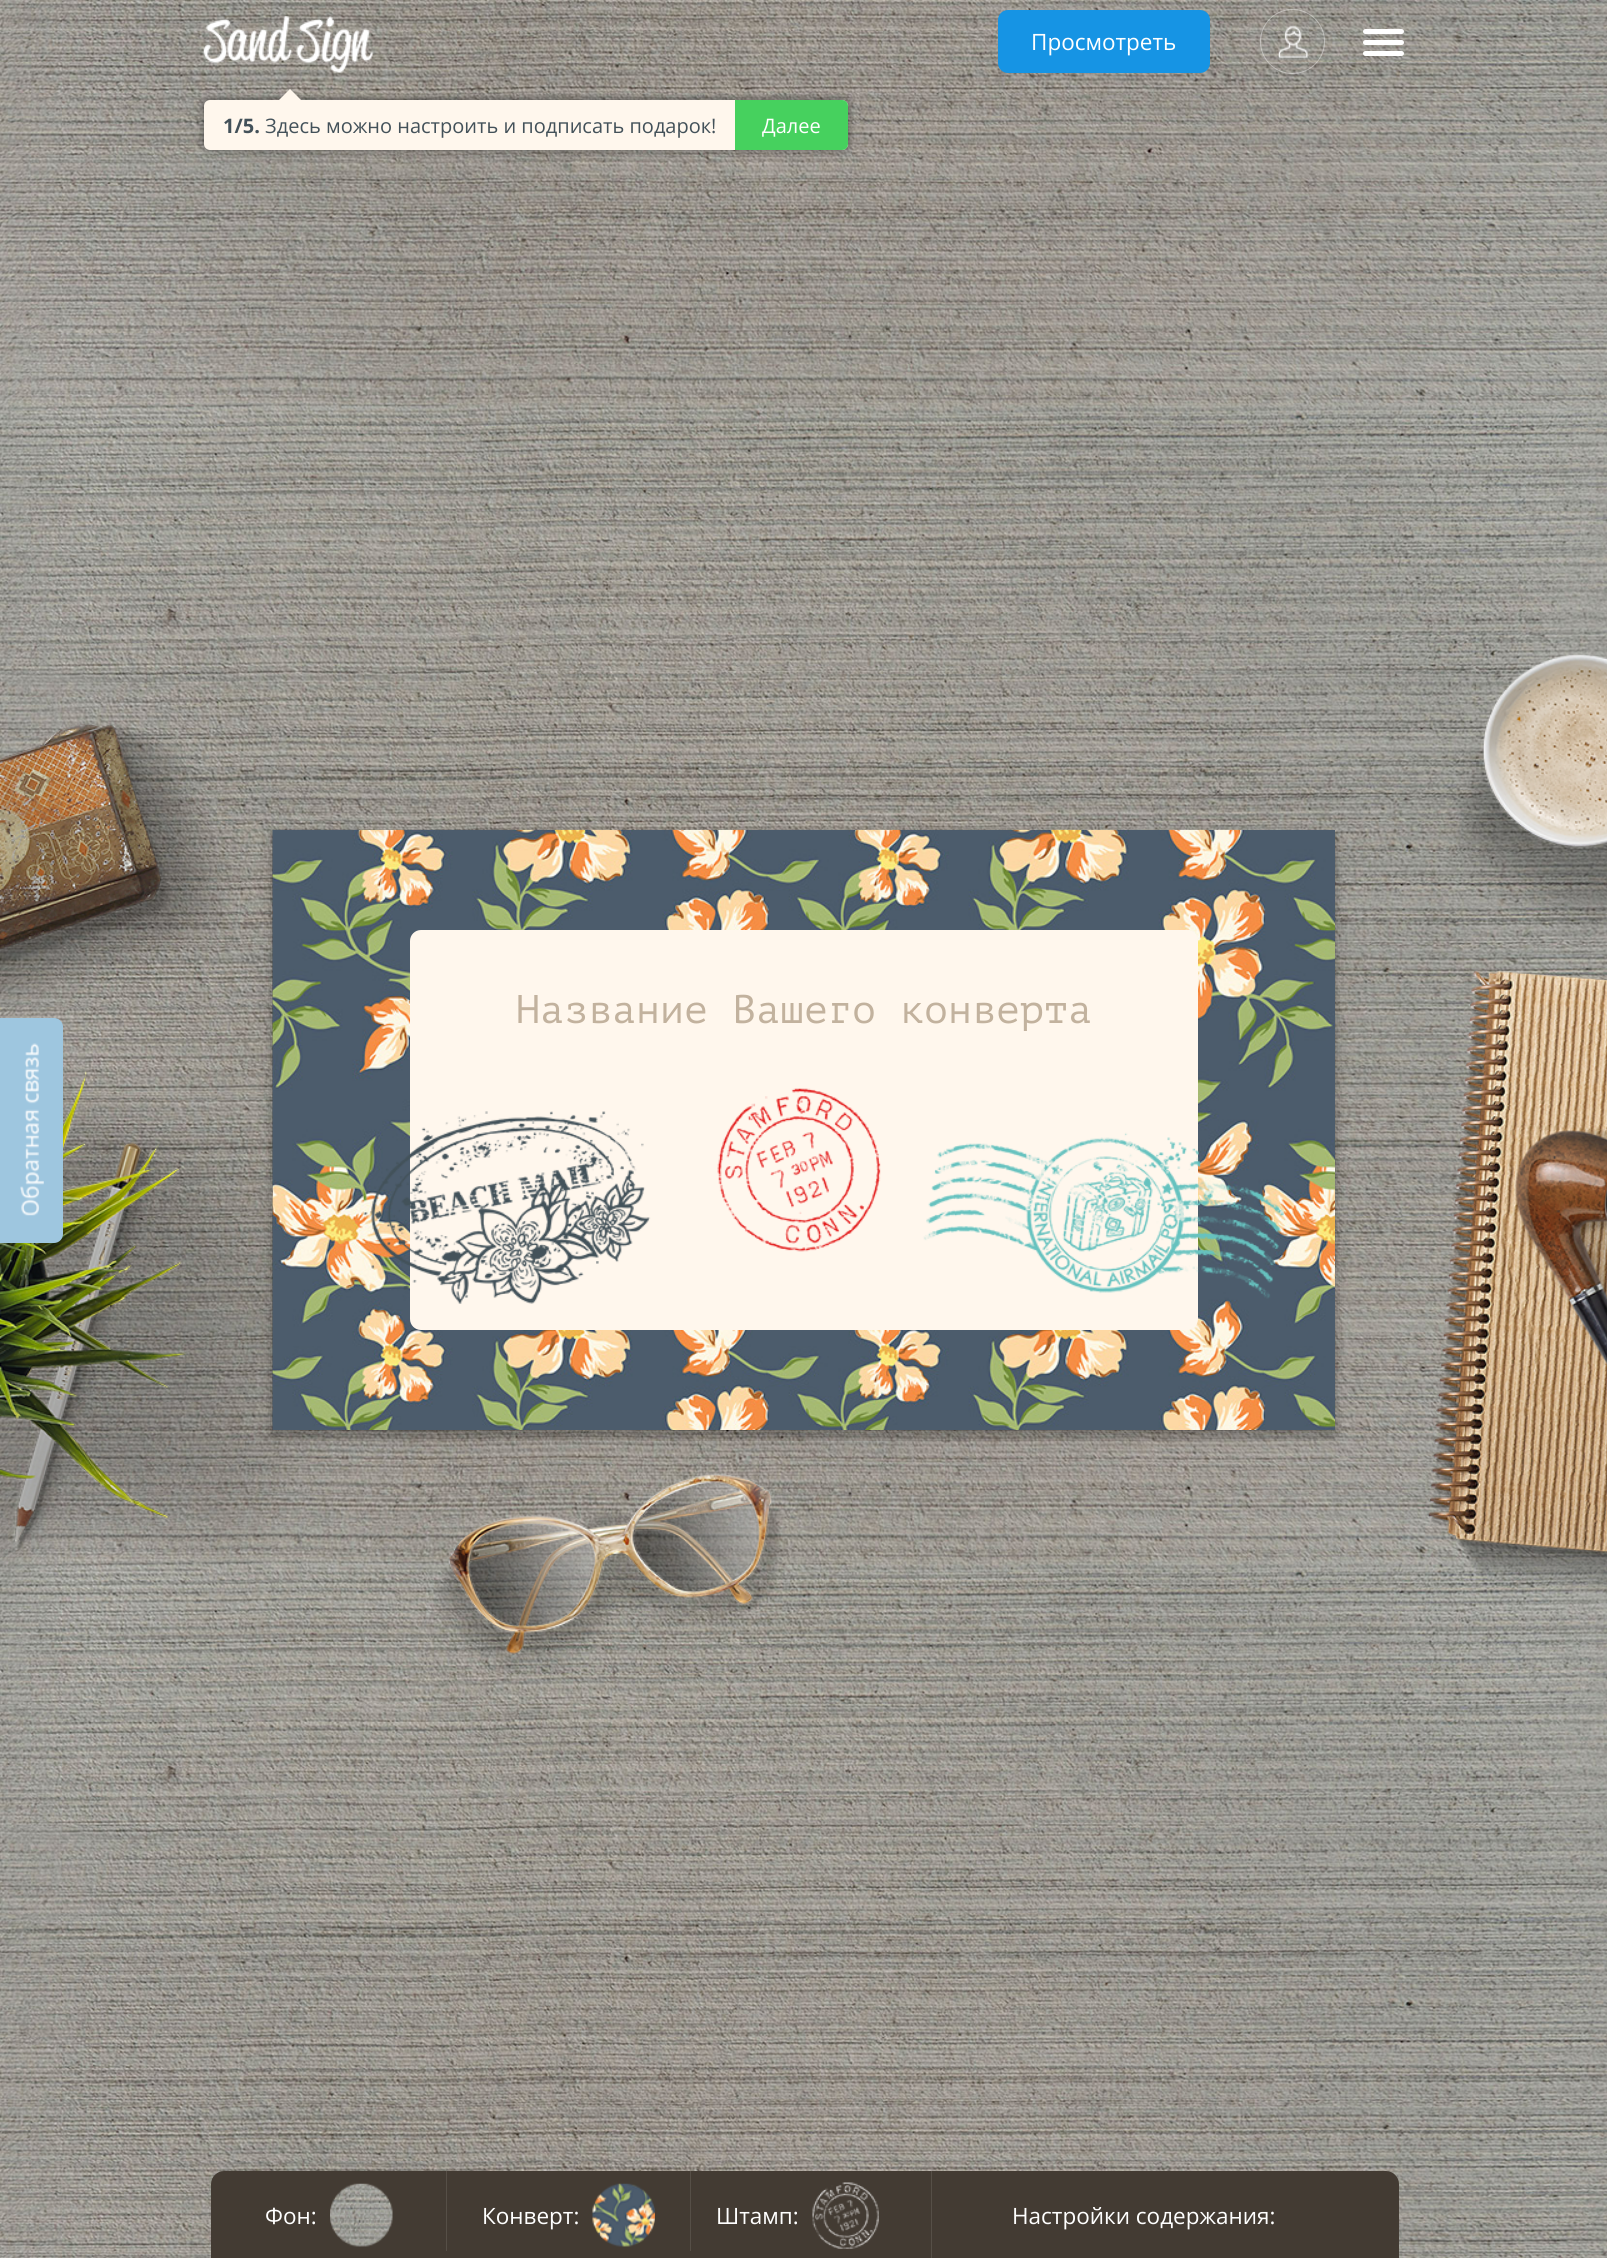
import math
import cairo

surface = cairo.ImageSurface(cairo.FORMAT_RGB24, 1607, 2258)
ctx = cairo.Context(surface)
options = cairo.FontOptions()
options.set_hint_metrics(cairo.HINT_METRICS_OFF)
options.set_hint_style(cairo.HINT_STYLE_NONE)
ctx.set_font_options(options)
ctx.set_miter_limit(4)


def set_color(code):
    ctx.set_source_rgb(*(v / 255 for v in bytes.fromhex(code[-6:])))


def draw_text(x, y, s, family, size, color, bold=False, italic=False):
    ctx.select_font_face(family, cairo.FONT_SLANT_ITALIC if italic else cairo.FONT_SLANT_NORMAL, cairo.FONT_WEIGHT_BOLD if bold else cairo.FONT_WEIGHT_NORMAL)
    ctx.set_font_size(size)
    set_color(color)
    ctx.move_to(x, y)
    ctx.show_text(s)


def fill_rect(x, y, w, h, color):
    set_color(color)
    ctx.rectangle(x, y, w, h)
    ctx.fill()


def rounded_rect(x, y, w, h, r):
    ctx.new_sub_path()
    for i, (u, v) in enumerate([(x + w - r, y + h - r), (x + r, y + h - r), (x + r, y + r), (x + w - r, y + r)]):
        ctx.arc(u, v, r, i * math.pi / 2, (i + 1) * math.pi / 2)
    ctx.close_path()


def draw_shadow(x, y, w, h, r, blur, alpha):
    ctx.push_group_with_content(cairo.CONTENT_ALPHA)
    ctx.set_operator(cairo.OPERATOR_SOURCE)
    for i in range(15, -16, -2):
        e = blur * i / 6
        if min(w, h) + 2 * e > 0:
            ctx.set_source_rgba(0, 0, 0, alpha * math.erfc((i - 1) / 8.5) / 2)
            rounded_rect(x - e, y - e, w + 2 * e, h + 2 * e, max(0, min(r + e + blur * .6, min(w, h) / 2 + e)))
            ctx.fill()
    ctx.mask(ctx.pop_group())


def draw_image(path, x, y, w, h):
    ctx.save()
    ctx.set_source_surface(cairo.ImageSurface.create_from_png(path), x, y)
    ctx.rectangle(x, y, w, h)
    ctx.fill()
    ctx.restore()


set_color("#ffffff")
ctx.paint()
draw_image("assets/img4.png", 0, 0, 1607, 2258)
draw_image("assets/img5.png", 0, 654, 1607, 1020)
set_color("#9ec6df")
ctx.new_path()
ctx.move_to(0, 1018)
ctx.line_to(54, 1018)
ctx.curve_to(59, 1018, 63, 1022, 63, 1027)
ctx.line_to(63, 1234)
ctx.curve_to(63, 1239, 59, 1243, 54, 1243)
ctx.line_to(0, 1243)
ctx.close_path()
ctx.fill()
draw_image("assets/img1.png", 20, 1043, 24, 173)
draw_image("assets/img2.png", 203, 16, 170, 57)
set_color("#1694e4")
rounded_rect(998, 10, 212, 63, 10)
ctx.fill()
draw_text(1031, 50, "Просмотреть", "Open Sans", 22.5, "#ffffff")
draw_image("assets/img3.png", 1278, 25, 30, 33)
ctx.arc(1292.5, 41.5, 32, 0, 2 * math.pi)
ctx.set_source_rgba(1, 1, 1, 0.4)
ctx.set_line_width(1)
ctx.stroke()
set_color("#ffffff")
rounded_rect(1363, 29, 41, 5, 2.5)
ctx.fill()
rounded_rect(1363, 40, 41, 5, 2.5)
ctx.fill()
rounded_rect(1363, 51, 41, 5, 2.5)
ctx.fill()
set_color("#323232")
draw_shadow(204, 100, 644, 50, 6, 4.5, 0.7)
set_color("#fff7ed")
rounded_rect(204, 100, 644, 50, 6)
ctx.fill()
ctx.new_path()
ctx.move_to(301, 100)
ctx.line_to(279, 100)
ctx.line_to(290, 89)
ctx.close_path()
ctx.fill()
draw_text(223, 133, "1/5.", "Open Sans", 20, "#435159", bold=True)
draw_text(265, 133, "Здесь можно настроить и подписать подарок!", "Open Sans", 20, "#435159")
set_color("#46d15e")
ctx.new_path()
ctx.move_to(735, 100)
ctx.line_to(842, 100)
ctx.curve_to(845.5, 100, 848, 102.5, 848, 106)
ctx.line_to(848, 144)
ctx.curve_to(848, 147.5, 845.5, 150, 842, 150)
ctx.line_to(735, 150)
ctx.close_path()
ctx.fill()
draw_text(762, 133, "Далее", "Open Sans", 20, "#ffffff")
draw_image("assets/img6.png", 272, 829, 1064, 1)
draw_image("assets/img7.png", 272, 830, 1063, 600)
ctx.save()
ctx.set_fill_rule(cairo.FILL_RULE_EVEN_ODD)
ctx.new_path()
ctx.move_to(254, 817)
ctx.line_to(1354, 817)
ctx.line_to(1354, 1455)
ctx.line_to(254, 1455)
ctx.close_path()
ctx.move_to(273, 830)
ctx.line_to(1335, 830)
ctx.line_to(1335, 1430)
ctx.line_to(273, 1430)
ctx.close_path()
ctx.clip()
set_color("#000000")
draw_shadow(273, 836, 1062, 600, 0, 6, 0.35)
ctx.restore()
set_color("#fff7ed")
rounded_rect(410, 930, 788, 400, 11)
ctx.fill()
draw_text(516, 1023, "Название Вашего конверта", "PT Mono", 40, "#c2b29e")
draw_image("assets/img8.png", 363, 1088, 921, 216)
set_color("#433b33")
ctx.new_path()
ctx.move_to(224, 2171)
ctx.line_to(1386, 2171)
ctx.curve_to(1393, 2171, 1399, 2177, 1399, 2184)
ctx.line_to(1399, 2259)
ctx.line_to(211, 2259)
ctx.line_to(211, 2184)
ctx.curve_to(211, 2177, 217, 2171, 224, 2171)
ctx.close_path()
ctx.fill()
fill_rect(446, 2171, 1, 80, "#564f47")
draw_text(265, 2224, "Фон:", "Open Sans", 22.5, "#ffffff")
draw_image("assets/img9.png", 330, 2183, 63, 64)
fill_rect(690, 2171, 1, 80, "#564f47")
draw_text(482, 2224, "Конверт:", "Open Sans", 22.5, "#ffffff")
draw_image("assets/img10.png", 592, 2183, 63, 64)
fill_rect(931, 2171, 1, 87, "#564f47")
draw_text(716, 2224, "Штамп:", "Open Sans", 22.5, "#ffffff")
draw_image("assets/img11.png", 812, 2182, 67, 67)
draw_text(1012, 2224, "Настройки содержания:", "Open Sans", 22.5, "#ffffff")
surface.write_to_png("output.png")
